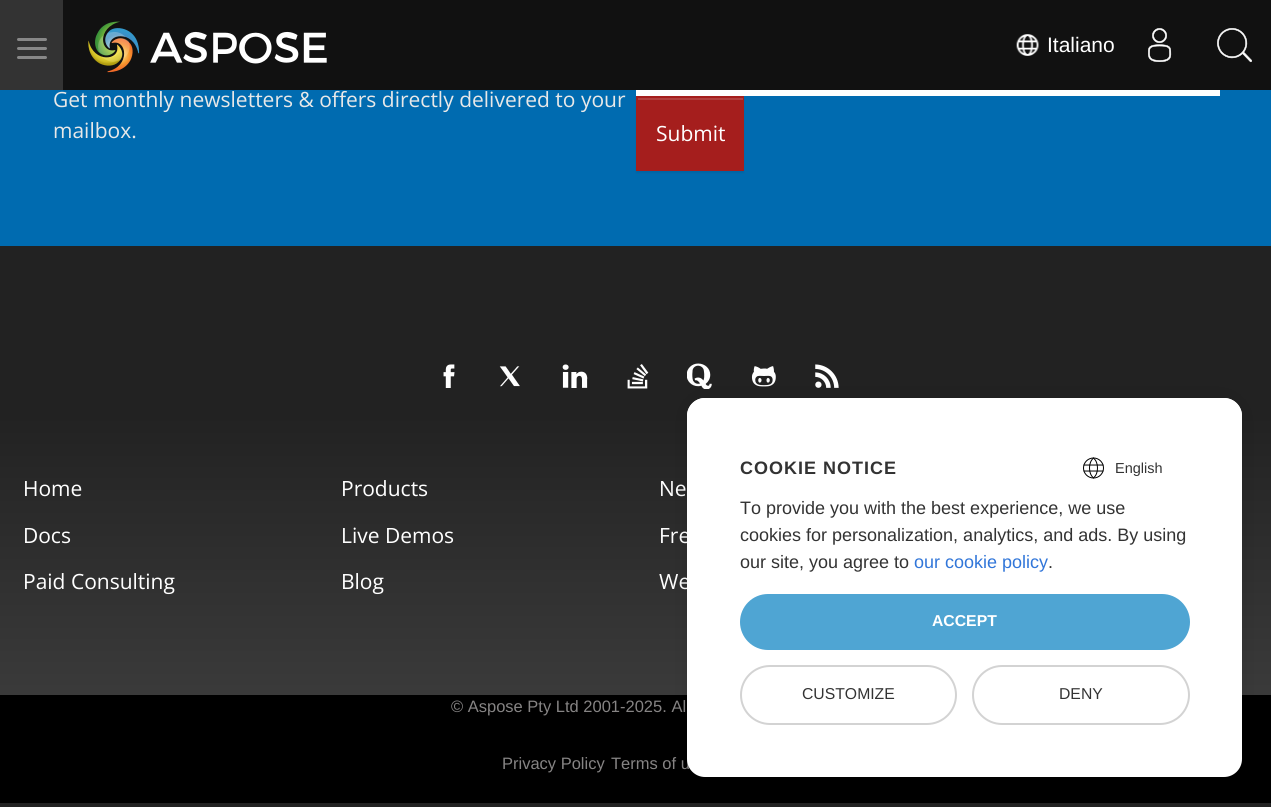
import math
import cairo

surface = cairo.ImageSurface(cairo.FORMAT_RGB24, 1271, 807)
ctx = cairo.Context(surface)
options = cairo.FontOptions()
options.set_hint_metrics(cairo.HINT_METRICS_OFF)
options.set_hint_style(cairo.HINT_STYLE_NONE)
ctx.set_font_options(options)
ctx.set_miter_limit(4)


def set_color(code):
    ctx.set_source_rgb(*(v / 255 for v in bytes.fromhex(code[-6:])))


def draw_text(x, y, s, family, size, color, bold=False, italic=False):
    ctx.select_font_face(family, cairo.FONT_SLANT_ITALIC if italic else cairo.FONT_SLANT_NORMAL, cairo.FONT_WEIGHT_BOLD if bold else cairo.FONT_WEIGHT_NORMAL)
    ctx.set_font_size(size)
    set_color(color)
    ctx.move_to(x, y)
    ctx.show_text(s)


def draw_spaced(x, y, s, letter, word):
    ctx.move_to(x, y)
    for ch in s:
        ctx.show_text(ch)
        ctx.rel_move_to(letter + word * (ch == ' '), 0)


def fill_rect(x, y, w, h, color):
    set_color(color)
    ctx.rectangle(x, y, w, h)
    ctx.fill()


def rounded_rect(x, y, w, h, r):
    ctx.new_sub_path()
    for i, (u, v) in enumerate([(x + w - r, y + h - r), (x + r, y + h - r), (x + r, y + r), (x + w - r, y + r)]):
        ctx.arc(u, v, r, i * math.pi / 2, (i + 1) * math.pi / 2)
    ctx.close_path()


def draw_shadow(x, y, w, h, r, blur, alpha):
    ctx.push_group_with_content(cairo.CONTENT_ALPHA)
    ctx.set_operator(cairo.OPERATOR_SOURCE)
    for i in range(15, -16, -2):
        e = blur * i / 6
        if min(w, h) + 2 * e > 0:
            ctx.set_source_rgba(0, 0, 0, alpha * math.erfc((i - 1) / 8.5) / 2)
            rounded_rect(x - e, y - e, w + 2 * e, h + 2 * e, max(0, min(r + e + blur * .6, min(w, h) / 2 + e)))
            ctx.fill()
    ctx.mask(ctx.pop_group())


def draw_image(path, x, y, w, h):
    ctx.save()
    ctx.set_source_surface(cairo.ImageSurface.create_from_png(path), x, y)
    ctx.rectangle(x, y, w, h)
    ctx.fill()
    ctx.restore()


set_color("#006bb0")
ctx.paint()
fill_rect(63, 0, 1208, 90, "#111111")
fill_rect(0, 0, 63, 90, "#333333")
set_color("#888888")
rounded_rect(17, 38, 30, 3, 1.5)
ctx.fill()
rounded_rect(17, 47, 30, 3, 1.5)
ctx.fill()
rounded_rect(17, 56, 30, 3, 1.5)
ctx.fill()
draw_image("assets/img1.png", 88, 21, 239, 52)
draw_image("assets/img2.png", 1016, 34, 23, 22)
draw_text(1047, 52, "Italiano", "Liberation Sans", 21, "#ffffff")
draw_image("assets/img3.png", 1148, 28, 24, 34)
draw_image("assets/img4.png", 1217, 28, 35, 35)
draw_text(53, 107, "Get monthly newsletters & offers directly delivered to your", "Open Sans", 21, "#e8e8e8")
draw_text(53, 138, "mailbox.", "Open Sans", 21, "#e8e8e8")
fill_rect(636, 90, 584, 6, "#ffffff")
set_color("#000000")
draw_shadow(636, 98, 108, 75, 0, 1, 0.07)
fill_rect(636, 96, 108, 75, "#a51e1d")
fill_rect(638, 98, 105, 2, "#b3403f")
draw_text(656, 141, "Submit", "Open Sans", 21, "#ffffff")
gradient = cairo.LinearGradient(636, 246, 636, 807)
gradient.add_color_stop_rgba(0.3, 0.133, 0.133, 0.133, 1)
gradient.add_color_stop_rgba(1, 0.267, 0.267, 0.267, 1)
ctx.set_source(gradient)
ctx.rectangle(0, 246, 1271, 449)
ctx.fill()
draw_image("assets/img5.png", 443, 364, 12, 24)
draw_image("assets/img6.png", 499, 366, 21, 21)
draw_image("assets/img7.png", 562, 364, 26, 24)
draw_image("assets/img8.png", 627, 364, 22, 25)
draw_image("assets/img9.png", 687, 363, 25, 26)
draw_image("assets/img10.png", 751, 366, 25, 21)
draw_image("assets/img11.png", 815, 364, 24, 24)
draw_text(23, 496, "Home", "Open Sans", 21, "#ffffff")
draw_text(341, 496, "Products", "Open Sans", 21, "#ffffff")
draw_text(659, 496, "Ne", "Open Sans", 21, "#ffffff")
draw_text(23, 543, "Docs", "Open Sans", 21, "#ffffff")
draw_text(341, 543, "Live Demos", "Open Sans", 21, "#ffffff")
draw_text(659, 543, "Fre", "Open Sans", 21, "#ffffff")
draw_text(23, 589, "Paid Consulting", "Open Sans", 21, "#ffffff")
draw_text(341, 589, "Blog", "Open Sans", 21, "#ffffff")
draw_text(659, 589, "We", "Open Sans", 21, "#ffffff")
fill_rect(0, 695, 1271, 108, "#000000")
fill_rect(0, 803, 1271, 4, "#222222")
draw_text(451, 712, "© Aspose Pty Ltd 2001-2025. Al", "Liberation Sans", 16.5, "#868484")
draw_text(502, 769, "Privacy Policy", "Liberation Sans", 16.5, "#868484")
draw_text(611, 769, "Terms of u", "Liberation Sans", 16.5, "#868484")
set_color("#000000")
draw_shadow(687, 398, 555, 379, 18, 10, 0.1)
set_color("#ffffff")
rounded_rect(687, 398, 555, 379, 18)
ctx.fill()
ctx.new_path()
ctx.move_to(705, 398)
ctx.line_to(1224, 398)
ctx.curve_to(1234, 398, 1242, 406, 1242, 416)
ctx.line_to(1242, 488)
ctx.line_to(687, 488)
ctx.line_to(687, 416)
ctx.curve_to(687, 406, 695, 398, 705, 398)
ctx.close_path()
ctx.fill()
ctx.select_font_face("Liberation Sans", cairo.FONT_SLANT_NORMAL, cairo.FONT_WEIGHT_BOLD)
ctx.set_font_size(18)
set_color("#333333")
draw_spaced(740, 474, "COOKIE NOTICE", 1, 0)
draw_image("assets/img12.png", 1083, 457, 21, 22)
draw_text(1115, 473, "English", "Liberation Sans", 14.5, "#333333")
draw_text(740, 514, "To provide you with the best experience, we use", "Liberation Sans", 18, "#333333")
draw_text(740, 541, "cookies for personalization, analytics, and ads. By using", "Liberation Sans", 18, "#333333")
draw_text(740, 568, "our site, you agree to", "Liberation Sans", 18, "#333333")
draw_text(914, 568, "our cookie policy", "Liberation Sans", 18, "#3176d9")
draw_text(1048, 568, ".", "Liberation Sans", 18, "#333333")
set_color("#4fa5d3")
rounded_rect(740, 594, 450, 56, 28)
ctx.fill()
draw_text(932, 626, "ACCEPT", "Liberation Sans", 15.75, "#ffffff", bold=True)
rounded_rect(741, 666, 215, 58, 29)
set_color("#d3d3d3")
ctx.stroke()
draw_text(802, 699, "CUSTOMIZE", "Liberation Sans", 15.75, "#333333")
rounded_rect(973, 666, 216, 58, 29)
set_color("#d3d3d3")
ctx.stroke()
draw_text(1059, 699, "DENY", "Liberation Sans", 15.75, "#333333")
surface.write_to_png("output.png")
